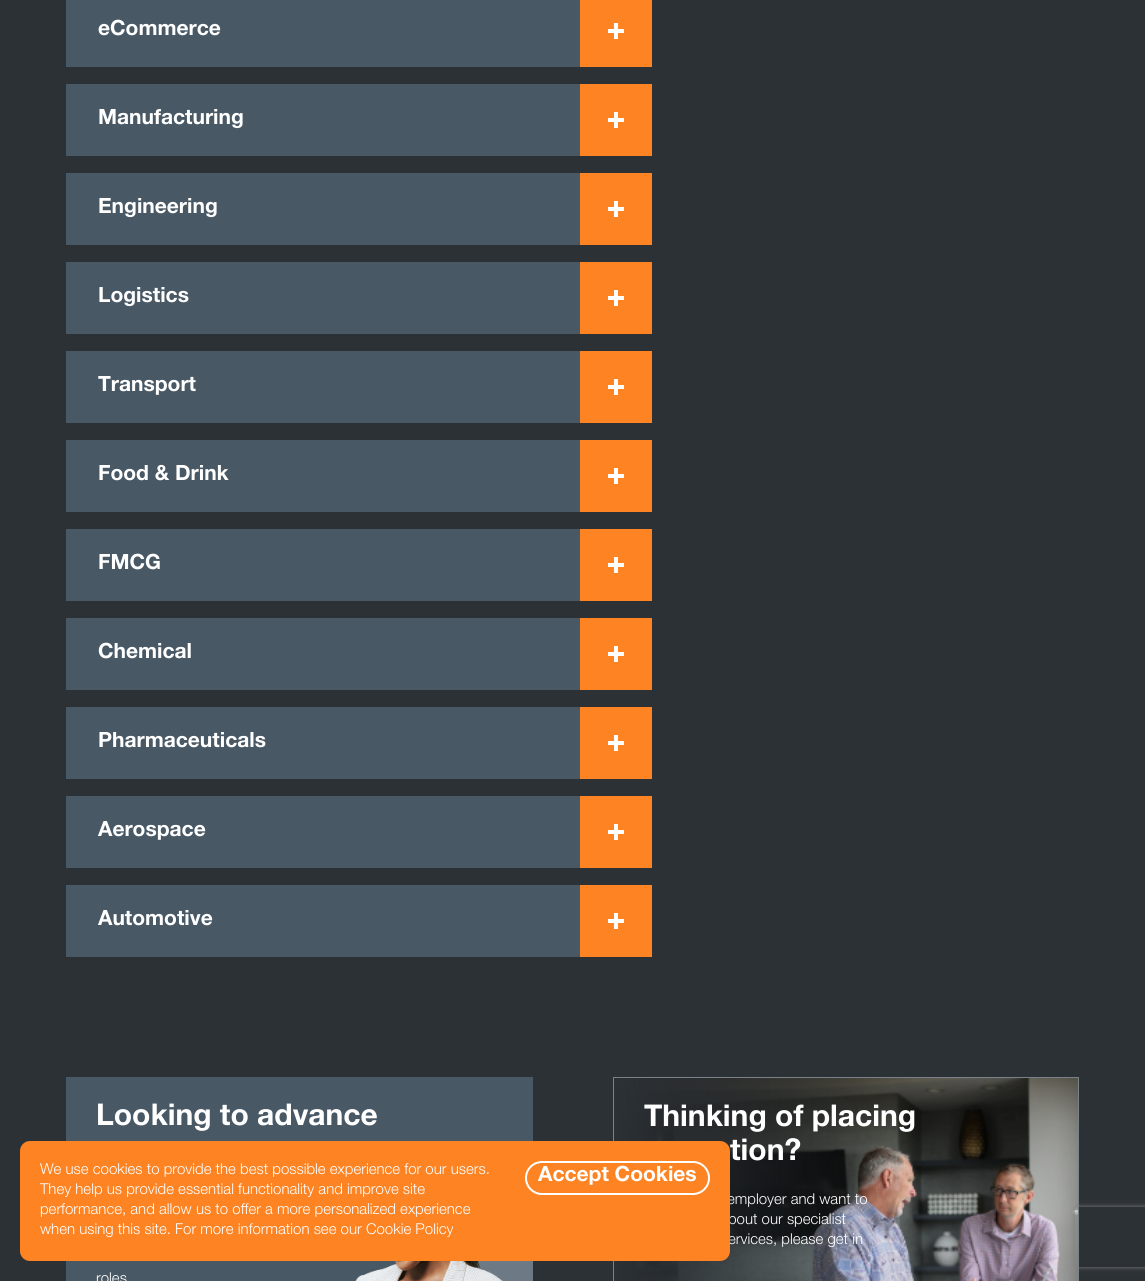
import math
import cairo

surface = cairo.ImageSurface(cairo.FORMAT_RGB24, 1145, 1281)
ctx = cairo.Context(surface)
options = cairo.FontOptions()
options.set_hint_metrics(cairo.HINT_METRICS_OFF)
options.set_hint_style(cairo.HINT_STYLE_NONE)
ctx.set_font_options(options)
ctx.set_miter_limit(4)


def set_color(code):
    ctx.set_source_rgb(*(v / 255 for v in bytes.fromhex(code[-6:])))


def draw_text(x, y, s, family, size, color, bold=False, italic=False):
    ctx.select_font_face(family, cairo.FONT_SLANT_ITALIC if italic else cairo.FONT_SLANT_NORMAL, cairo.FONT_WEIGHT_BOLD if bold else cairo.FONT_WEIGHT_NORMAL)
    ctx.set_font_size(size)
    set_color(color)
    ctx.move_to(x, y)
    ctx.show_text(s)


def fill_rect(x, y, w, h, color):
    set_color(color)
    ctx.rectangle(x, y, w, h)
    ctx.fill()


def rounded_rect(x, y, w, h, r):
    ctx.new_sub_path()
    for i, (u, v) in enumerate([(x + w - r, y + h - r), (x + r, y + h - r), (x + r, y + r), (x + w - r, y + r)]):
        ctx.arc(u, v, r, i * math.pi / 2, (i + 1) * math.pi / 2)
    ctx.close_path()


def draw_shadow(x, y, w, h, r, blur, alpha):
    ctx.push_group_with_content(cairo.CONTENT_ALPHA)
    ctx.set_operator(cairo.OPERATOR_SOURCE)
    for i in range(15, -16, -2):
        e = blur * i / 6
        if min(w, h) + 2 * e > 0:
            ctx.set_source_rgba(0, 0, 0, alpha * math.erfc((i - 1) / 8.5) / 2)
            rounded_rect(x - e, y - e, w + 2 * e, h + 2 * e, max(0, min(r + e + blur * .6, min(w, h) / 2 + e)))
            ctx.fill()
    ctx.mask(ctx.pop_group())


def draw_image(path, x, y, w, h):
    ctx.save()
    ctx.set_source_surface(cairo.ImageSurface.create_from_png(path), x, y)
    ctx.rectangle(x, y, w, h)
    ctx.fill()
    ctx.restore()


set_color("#2c3136")
ctx.paint()
fill_rect(66, 0, 514, 67, "#485865")
draw_text(98, 35, "eCommerce", "Helvetica Neue", 21, "#ffffff", bold=True)
fill_rect(580, 0, 72, 67, "#fd8323")
fill_rect(614, 23, 4, 16, "#ffffff")
fill_rect(608, 29, 16, 4, "#ffffff")
fill_rect(66, 84, 514, 72, "#485865")
draw_text(98, 124, "Manufacturing", "Helvetica Neue", 21, "#ffffff", bold=True)
fill_rect(580, 84, 72, 72, "#fd8323")
fill_rect(614, 112, 4, 16, "#ffffff")
fill_rect(608, 118, 16, 4, "#ffffff")
fill_rect(66, 173, 514, 72, "#485865")
draw_text(98, 213, "Engineering", "Helvetica Neue", 21, "#ffffff", bold=True)
fill_rect(580, 173, 72, 72, "#fd8323")
fill_rect(614, 201, 4, 16, "#ffffff")
fill_rect(608, 207, 16, 4, "#ffffff")
fill_rect(66, 262, 514, 72, "#485865")
draw_text(98, 302, "Logistics", "Helvetica Neue", 21, "#ffffff", bold=True)
fill_rect(580, 262, 72, 72, "#fd8323")
fill_rect(614, 290, 4, 16, "#ffffff")
fill_rect(608, 296, 16, 4, "#ffffff")
fill_rect(66, 351, 514, 72, "#485865")
draw_text(98, 391, "Transport", "Helvetica Neue", 21, "#ffffff", bold=True)
fill_rect(580, 351, 72, 72, "#fd8323")
fill_rect(614, 379, 4, 16, "#ffffff")
fill_rect(608, 385, 16, 4, "#ffffff")
fill_rect(66, 440, 514, 72, "#485865")
draw_text(98, 480, "Food & Drink", "Helvetica Neue", 21, "#ffffff", bold=True)
fill_rect(580, 440, 72, 72, "#fd8323")
fill_rect(614, 468, 4, 16, "#ffffff")
fill_rect(608, 474, 16, 4, "#ffffff")
fill_rect(66, 529, 514, 72, "#485865")
draw_text(98, 569, "FMCG", "Helvetica Neue", 21, "#ffffff", bold=True)
fill_rect(580, 529, 72, 72, "#fd8323")
fill_rect(614, 557, 4, 16, "#ffffff")
fill_rect(608, 563, 16, 4, "#ffffff")
fill_rect(66, 618, 514, 72, "#485865")
draw_text(98, 658, "Chemical", "Helvetica Neue", 21, "#ffffff", bold=True)
fill_rect(580, 618, 72, 72, "#fd8323")
fill_rect(614, 646, 4, 16, "#ffffff")
fill_rect(608, 652, 16, 4, "#ffffff")
fill_rect(66, 707, 514, 72, "#485865")
draw_text(98, 747, "Pharmaceuticals", "Helvetica Neue", 21, "#ffffff", bold=True)
fill_rect(580, 707, 72, 72, "#fd8323")
fill_rect(614, 735, 4, 16, "#ffffff")
fill_rect(608, 741, 16, 4, "#ffffff")
fill_rect(66, 796, 514, 72, "#485865")
draw_text(98, 836, "Aerospace", "Helvetica Neue", 21, "#ffffff", bold=True)
fill_rect(580, 796, 72, 72, "#fd8323")
fill_rect(614, 824, 4, 16, "#ffffff")
fill_rect(608, 830, 16, 4, "#ffffff")
fill_rect(66, 885, 514, 72, "#485865")
draw_text(98, 925, "Automotive", "Helvetica Neue", 21, "#ffffff", bold=True)
fill_rect(580, 885, 72, 72, "#fd8323")
fill_rect(614, 913, 4, 16, "#ffffff")
fill_rect(608, 919, 16, 4, "#ffffff")
fill_rect(66, 1077, 467, 204, "#485865")
draw_text(96, 1125, "Looking to advance", "Helvetica Neue", 30, "#ffffff", bold=True)
ctx.save()
ctx.rectangle(66, 1077, 467, 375)
ctx.clip()
rounded_rect(358, 1277, 350, 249, 175)
set_color("#6d7984")
ctx.set_line_width(70)
ctx.stroke()
ctx.restore()
draw_text(96, 1283, "roles", "Helvetica Neue Light", 15, "#ffffff")
draw_image("assets/img1.png", 355, 1261, 148, 20)
draw_image("assets/img2.png", 614, 1078, 464, 203)
ctx.rectangle(613.5, 1077.5, 465, 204)
set_color("#798189")
ctx.set_line_width(1)
ctx.stroke()
draw_text(644, 1126, "Thinking of placing", "Helvetica Neue", 30, "#ffffff", bold=True)
draw_text(730, 1160, "tion?", "Helvetica Neue", 30, "#ffffff", bold=True)
draw_text(727, 1204, "employer and want to", "Helvetica Neue Light", 15, "#ffffff")
draw_text(728, 1224, "bout our specialist", "Helvetica Neue Light", 15, "#ffffff")
draw_text(728, 1244, "ervices, please get in", "Helvetica Neue Light", 15, "#ffffff")
set_color("#fd8323")
rounded_rect(20, 1141, 710, 120, 10)
ctx.fill()
draw_text(40, 1174, "We use cookies to provide the best possible experience for our users.", "Helvetica Neue Light", 15, "#ffffff")
draw_text(40, 1194, "They help us provide essential functionality and improve site", "Helvetica Neue Light", 15, "#ffffff")
draw_text(40, 1214, "performance, and allow us to offer a more personalized experience", "Helvetica Neue Light", 15, "#ffffff")
draw_text(40, 1234, "when using this site. For more information see our Cookie Policy", "Helvetica Neue Light", 15, "#ffffff")
rounded_rect(526, 1162, 183, 32, 16)
ctx.set_line_width(2)
ctx.stroke()
draw_text(538, 1181, "Accept Cookies", "Helvetica Neue", 21, "#ffffff", bold=True)
ctx.save()
ctx.set_fill_rule(cairo.FILL_RULE_EVEN_ODD)
ctx.new_path()
ctx.move_to(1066, 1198)
ctx.line_to(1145, 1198)
ctx.line_to(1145, 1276)
ctx.line_to(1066, 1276)
ctx.close_path()
ctx.move_to(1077, 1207)
ctx.line_to(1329, 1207)
ctx.curve_to(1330, 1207, 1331, 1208, 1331, 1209)
ctx.line_to(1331, 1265)
ctx.curve_to(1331, 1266, 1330, 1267, 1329, 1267)
ctx.line_to(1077, 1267)
ctx.curve_to(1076, 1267, 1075, 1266, 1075, 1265)
ctx.line_to(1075, 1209)
ctx.curve_to(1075, 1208, 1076, 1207, 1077, 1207)
ctx.close_path()
ctx.clip()
set_color("#808080")
draw_shadow(1075, 1207, 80, 60, 2, 2.5, 1)
ctx.restore()
surface.write_to_png("output.png")
